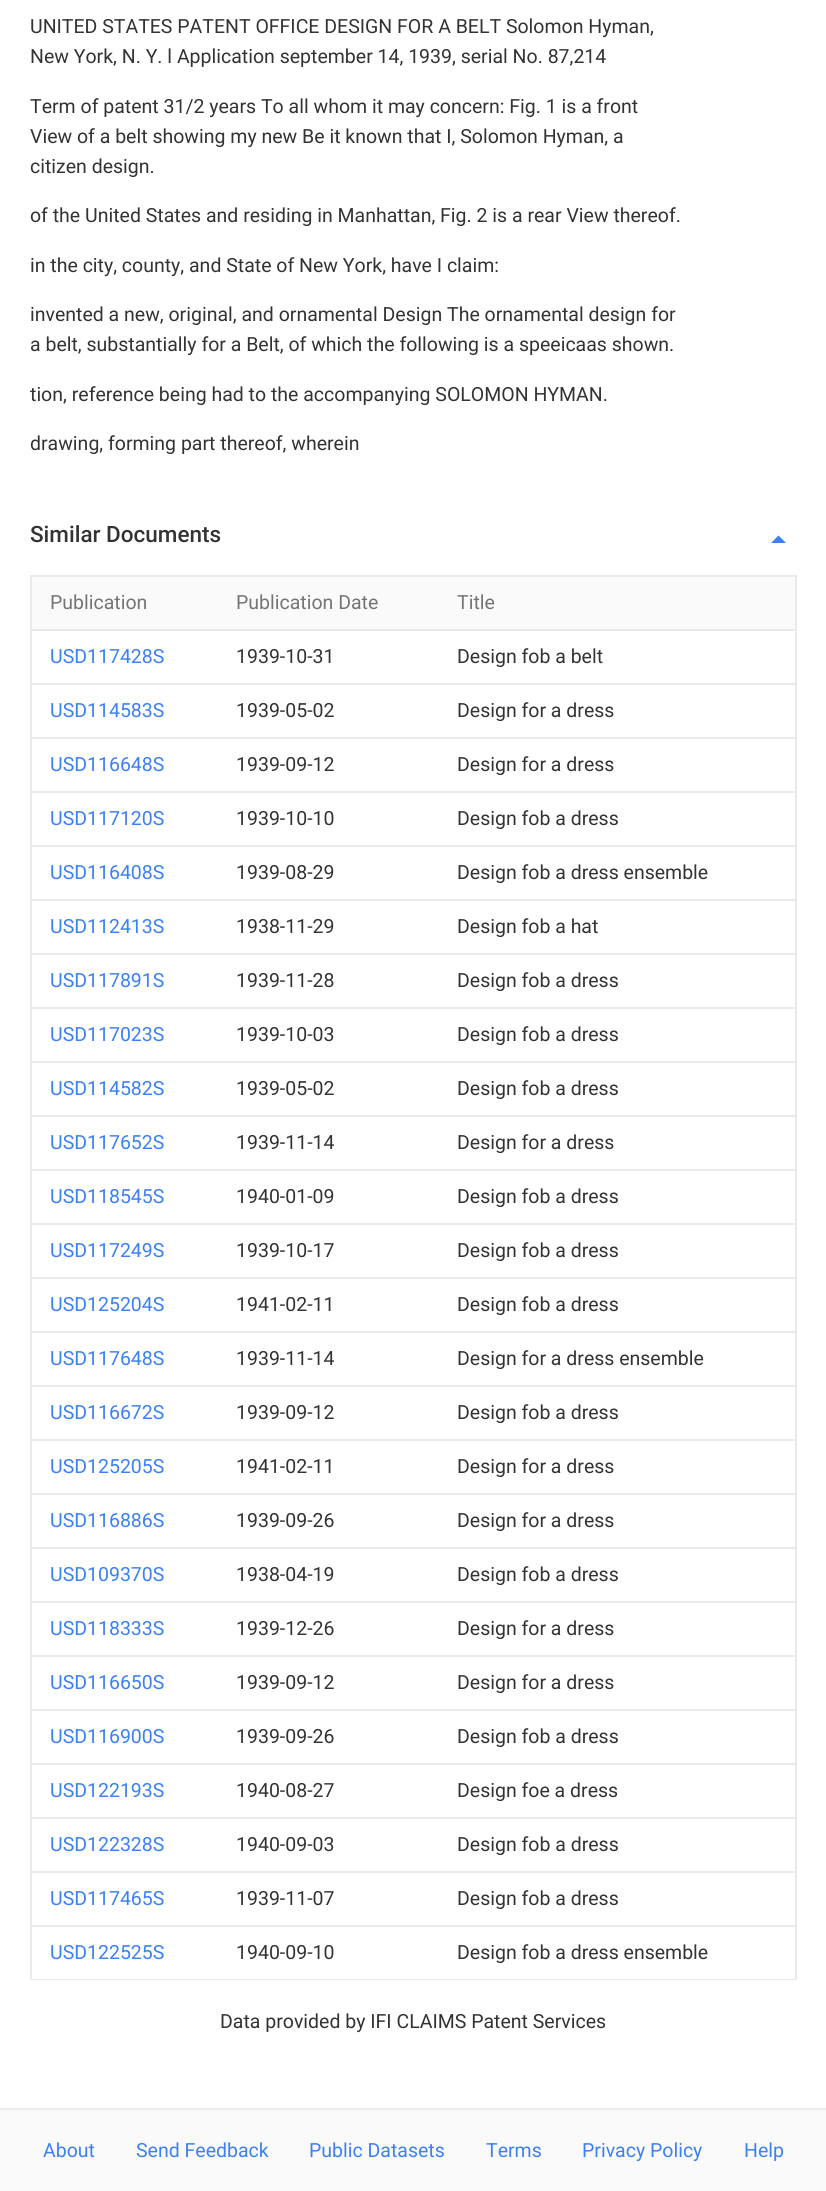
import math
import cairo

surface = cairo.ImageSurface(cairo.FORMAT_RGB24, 826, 2191)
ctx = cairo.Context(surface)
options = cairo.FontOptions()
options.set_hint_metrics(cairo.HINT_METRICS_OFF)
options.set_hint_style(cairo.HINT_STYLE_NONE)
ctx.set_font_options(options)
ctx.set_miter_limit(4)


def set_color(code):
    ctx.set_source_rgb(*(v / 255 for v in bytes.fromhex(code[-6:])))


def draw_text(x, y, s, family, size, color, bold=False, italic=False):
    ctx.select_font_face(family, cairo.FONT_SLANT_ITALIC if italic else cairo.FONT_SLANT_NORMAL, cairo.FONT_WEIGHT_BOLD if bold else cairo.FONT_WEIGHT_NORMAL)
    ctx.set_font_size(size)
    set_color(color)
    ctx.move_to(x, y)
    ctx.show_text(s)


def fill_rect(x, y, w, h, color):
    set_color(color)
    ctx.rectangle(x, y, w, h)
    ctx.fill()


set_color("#ffffff")
ctx.paint()
draw_text(30, 33, "UNITED STATES PATENT OFFICE DESIGN FOR A BELT Solomon Hyman,", "Roboto", 19.5, "#333333")
draw_text(30, 63, "New York, N. Y. l Application september 14, 1939, serial No. 87,214", "Roboto", 19.5, "#333333")
draw_text(30, 113, "Term of patent 31/2 years To all whom it may concern: Fig. 1 is a front", "Roboto", 19.5, "#333333")
draw_text(30, 143, "View of a belt showing my new Be it known that I, Solomon Hyman, a", "Roboto", 19.5, "#333333")
draw_text(30, 173, "citizen design.", "Roboto", 19.5, "#333333")
draw_text(30, 222, "of the United States and residing in Manhattan, Fig. 2 is a rear View thereof.", "Roboto", 19.5, "#333333")
draw_text(30, 272, "in the city, county, and State of New York, have I claim:", "Roboto", 19.5, "#333333")
draw_text(30, 321, "invented a new, original, and ornamental Design The ornamental design for", "Roboto", 19.5, "#333333")
draw_text(30, 351, "a belt, substantially for a Belt, of which the following is a speeicaas shown.", "Roboto", 19.5, "#333333")
draw_text(30, 401, "tion, reference being had to the accompanying SOLOMON HYMAN.", "Roboto", 19.5, "#333333")
draw_text(30, 450, "drawing, forming part thereof, wherein", "Roboto", 19.5, "#333333")
draw_text(30, 542, "Similar Documents", "Roboto Medium", 22.5, "#333333")
set_color("#3c80f6")
ctx.new_path()
ctx.move_to(771, 543)
ctx.line_to(778.5, 535.5)
ctx.line_to(786, 543)
ctx.close_path()
ctx.fill()
fill_rect(30, 575, 767, 2, "#eaeaea")
fill_rect(795, 575, 2, 1405, "#eaeaea")
fill_rect(30, 1979, 767, 1, "#eaeaea")
fill_rect(30, 575, 2, 1405, "#eaeaea")
fill_rect(30, 629, 767, 2, "#eaeaea")
fill_rect(32, 577, 763, 52, "#fafafa")
draw_text(50, 609, "Publication", "Roboto", 19.5, "#757575")
draw_text(236, 609, "Publication Date", "Roboto", 19.5, "#757575")
draw_text(457, 609, "Title", "Roboto", 19.5, "#757575")
fill_rect(30, 683, 767, 2, "#eaeaea")
draw_text(50, 663, "USD117428S", "Roboto", 19.5, "#3c80f6")
draw_text(236, 663, "1939-10-31", "Roboto", 19.5, "#333333")
draw_text(457, 663, "Design fob a belt", "Roboto", 19.5, "#333333")
fill_rect(30, 737, 767, 2, "#eaeaea")
draw_text(50, 717, "USD114583S", "Roboto", 19.5, "#3c80f6")
draw_text(236, 717, "1939-05-02", "Roboto", 19.5, "#333333")
draw_text(457, 717, "Design for a dress", "Roboto", 19.5, "#333333")
fill_rect(30, 791, 767, 2, "#eaeaea")
draw_text(50, 771, "USD116648S", "Roboto", 19.5, "#3c80f6")
draw_text(236, 771, "1939-09-12", "Roboto", 19.5, "#333333")
draw_text(457, 771, "Design for a dress", "Roboto", 19.5, "#333333")
fill_rect(30, 845, 767, 2, "#eaeaea")
draw_text(50, 825, "USD117120S", "Roboto", 19.5, "#3c80f6")
draw_text(236, 825, "1939-10-10", "Roboto", 19.5, "#333333")
draw_text(457, 825, "Design fob a dress", "Roboto", 19.5, "#333333")
fill_rect(30, 899, 767, 2, "#eaeaea")
draw_text(50, 879, "USD116408S", "Roboto", 19.5, "#3c80f6")
draw_text(236, 879, "1939-08-29", "Roboto", 19.5, "#333333")
draw_text(457, 879, "Design fob a dress ensemble", "Roboto", 19.5, "#333333")
fill_rect(30, 953, 767, 2, "#eaeaea")
draw_text(50, 933, "USD112413S", "Roboto", 19.5, "#3c80f6")
draw_text(236, 933, "1938-11-29", "Roboto", 19.5, "#333333")
draw_text(457, 933, "Design fob a hat", "Roboto", 19.5, "#333333")
fill_rect(30, 1007, 767, 2, "#eaeaea")
draw_text(50, 987, "USD117891S", "Roboto", 19.5, "#3c80f6")
draw_text(236, 987, "1939-11-28", "Roboto", 19.5, "#333333")
draw_text(457, 987, "Design fob a dress", "Roboto", 19.5, "#333333")
fill_rect(30, 1061, 767, 2, "#eaeaea")
draw_text(50, 1041, "USD117023S", "Roboto", 19.5, "#3c80f6")
draw_text(236, 1041, "1939-10-03", "Roboto", 19.5, "#333333")
draw_text(457, 1041, "Design fob a dress", "Roboto", 19.5, "#333333")
fill_rect(30, 1115, 767, 2, "#eaeaea")
draw_text(50, 1095, "USD114582S", "Roboto", 19.5, "#3c80f6")
draw_text(236, 1095, "1939-05-02", "Roboto", 19.5, "#333333")
draw_text(457, 1095, "Design fob a dress", "Roboto", 19.5, "#333333")
fill_rect(30, 1169, 767, 2, "#eaeaea")
draw_text(50, 1149, "USD117652S", "Roboto", 19.5, "#3c80f6")
draw_text(236, 1149, "1939-11-14", "Roboto", 19.5, "#333333")
draw_text(457, 1149, "Design for a dress", "Roboto", 19.5, "#333333")
fill_rect(30, 1223, 767, 2, "#eaeaea")
draw_text(50, 1203, "USD118545S", "Roboto", 19.5, "#3c80f6")
draw_text(236, 1203, "1940-01-09", "Roboto", 19.5, "#333333")
draw_text(457, 1203, "Design fob a dress", "Roboto", 19.5, "#333333")
fill_rect(30, 1277, 767, 2, "#eaeaea")
draw_text(50, 1257, "USD117249S", "Roboto", 19.5, "#3c80f6")
draw_text(236, 1257, "1939-10-17", "Roboto", 19.5, "#333333")
draw_text(457, 1257, "Design fob a dress", "Roboto", 19.5, "#333333")
fill_rect(30, 1331, 767, 2, "#eaeaea")
draw_text(50, 1311, "USD125204S", "Roboto", 19.5, "#3c80f6")
draw_text(236, 1311, "1941-02-11", "Roboto", 19.5, "#333333")
draw_text(457, 1311, "Design fob a dress", "Roboto", 19.5, "#333333")
fill_rect(30, 1385, 767, 2, "#eaeaea")
draw_text(50, 1365, "USD117648S", "Roboto", 19.5, "#3c80f6")
draw_text(236, 1365, "1939-11-14", "Roboto", 19.5, "#333333")
draw_text(457, 1365, "Design for a dress ensemble", "Roboto", 19.5, "#333333")
fill_rect(30, 1439, 767, 2, "#eaeaea")
draw_text(50, 1419, "USD116672S", "Roboto", 19.5, "#3c80f6")
draw_text(236, 1419, "1939-09-12", "Roboto", 19.5, "#333333")
draw_text(457, 1419, "Design fob a dress", "Roboto", 19.5, "#333333")
fill_rect(30, 1493, 767, 2, "#eaeaea")
draw_text(50, 1473, "USD125205S", "Roboto", 19.5, "#3c80f6")
draw_text(236, 1473, "1941-02-11", "Roboto", 19.5, "#333333")
draw_text(457, 1473, "Design for a dress", "Roboto", 19.5, "#333333")
fill_rect(30, 1547, 767, 2, "#eaeaea")
draw_text(50, 1527, "USD116886S", "Roboto", 19.5, "#3c80f6")
draw_text(236, 1527, "1939-09-26", "Roboto", 19.5, "#333333")
draw_text(457, 1527, "Design for a dress", "Roboto", 19.5, "#333333")
fill_rect(30, 1601, 767, 2, "#eaeaea")
draw_text(50, 1581, "USD109370S", "Roboto", 19.5, "#3c80f6")
draw_text(236, 1581, "1938-04-19", "Roboto", 19.5, "#333333")
draw_text(457, 1581, "Design fob a dress", "Roboto", 19.5, "#333333")
fill_rect(30, 1655, 767, 2, "#eaeaea")
draw_text(50, 1635, "USD118333S", "Roboto", 19.5, "#3c80f6")
draw_text(236, 1635, "1939-12-26", "Roboto", 19.5, "#333333")
draw_text(457, 1635, "Design for a dress", "Roboto", 19.5, "#333333")
fill_rect(30, 1709, 767, 2, "#eaeaea")
draw_text(50, 1689, "USD116650S", "Roboto", 19.5, "#3c80f6")
draw_text(236, 1689, "1939-09-12", "Roboto", 19.5, "#333333")
draw_text(457, 1689, "Design for a dress", "Roboto", 19.5, "#333333")
fill_rect(30, 1763, 767, 2, "#eaeaea")
draw_text(50, 1743, "USD116900S", "Roboto", 19.5, "#3c80f6")
draw_text(236, 1743, "1939-09-26", "Roboto", 19.5, "#333333")
draw_text(457, 1743, "Design fob a dress", "Roboto", 19.5, "#333333")
fill_rect(30, 1817, 767, 2, "#eaeaea")
draw_text(50, 1797, "USD122193S", "Roboto", 19.5, "#3c80f6")
draw_text(236, 1797, "1940-08-27", "Roboto", 19.5, "#333333")
draw_text(457, 1797, "Design foe a dress", "Roboto", 19.5, "#333333")
fill_rect(30, 1871, 767, 2, "#eaeaea")
draw_text(50, 1851, "USD122328S", "Roboto", 19.5, "#3c80f6")
draw_text(236, 1851, "1940-09-03", "Roboto", 19.5, "#333333")
draw_text(457, 1851, "Design fob a dress", "Roboto", 19.5, "#333333")
fill_rect(30, 1925, 767, 2, "#eaeaea")
draw_text(50, 1905, "USD117465S", "Roboto", 19.5, "#3c80f6")
draw_text(236, 1905, "1939-11-07", "Roboto", 19.5, "#333333")
draw_text(457, 1905, "Design fob a dress", "Roboto", 19.5, "#333333")
draw_text(50, 1959, "USD122525S", "Roboto", 19.5, "#3c80f6")
draw_text(236, 1959, "1940-09-10", "Roboto", 19.5, "#333333")
draw_text(457, 1959, "Design fob a dress ensemble", "Roboto", 19.5, "#333333")
draw_text(220, 2028, "Data provided by IFI CLAIMS Patent Services", "Roboto", 19.5, "#333333")
fill_rect(0, 2110, 826, 81, "#fafafa")
fill_rect(0, 2108, 826, 2, "#ebebeb")
draw_text(43, 2157, "About", "Roboto", 19.5, "#3c80f6")
draw_text(136, 2157, "Send Feedback", "Roboto", 19.5, "#3c80f6")
draw_text(309, 2157, "Public Datasets", "Roboto", 19.5, "#3c80f6")
draw_text(486, 2157, "Terms", "Roboto", 19.5, "#3c80f6")
draw_text(582, 2157, "Privacy Policy", "Roboto", 19.5, "#3c80f6")
draw_text(744, 2157, "Help", "Roboto", 19.5, "#3c80f6")
surface.write_to_png("output.png")
